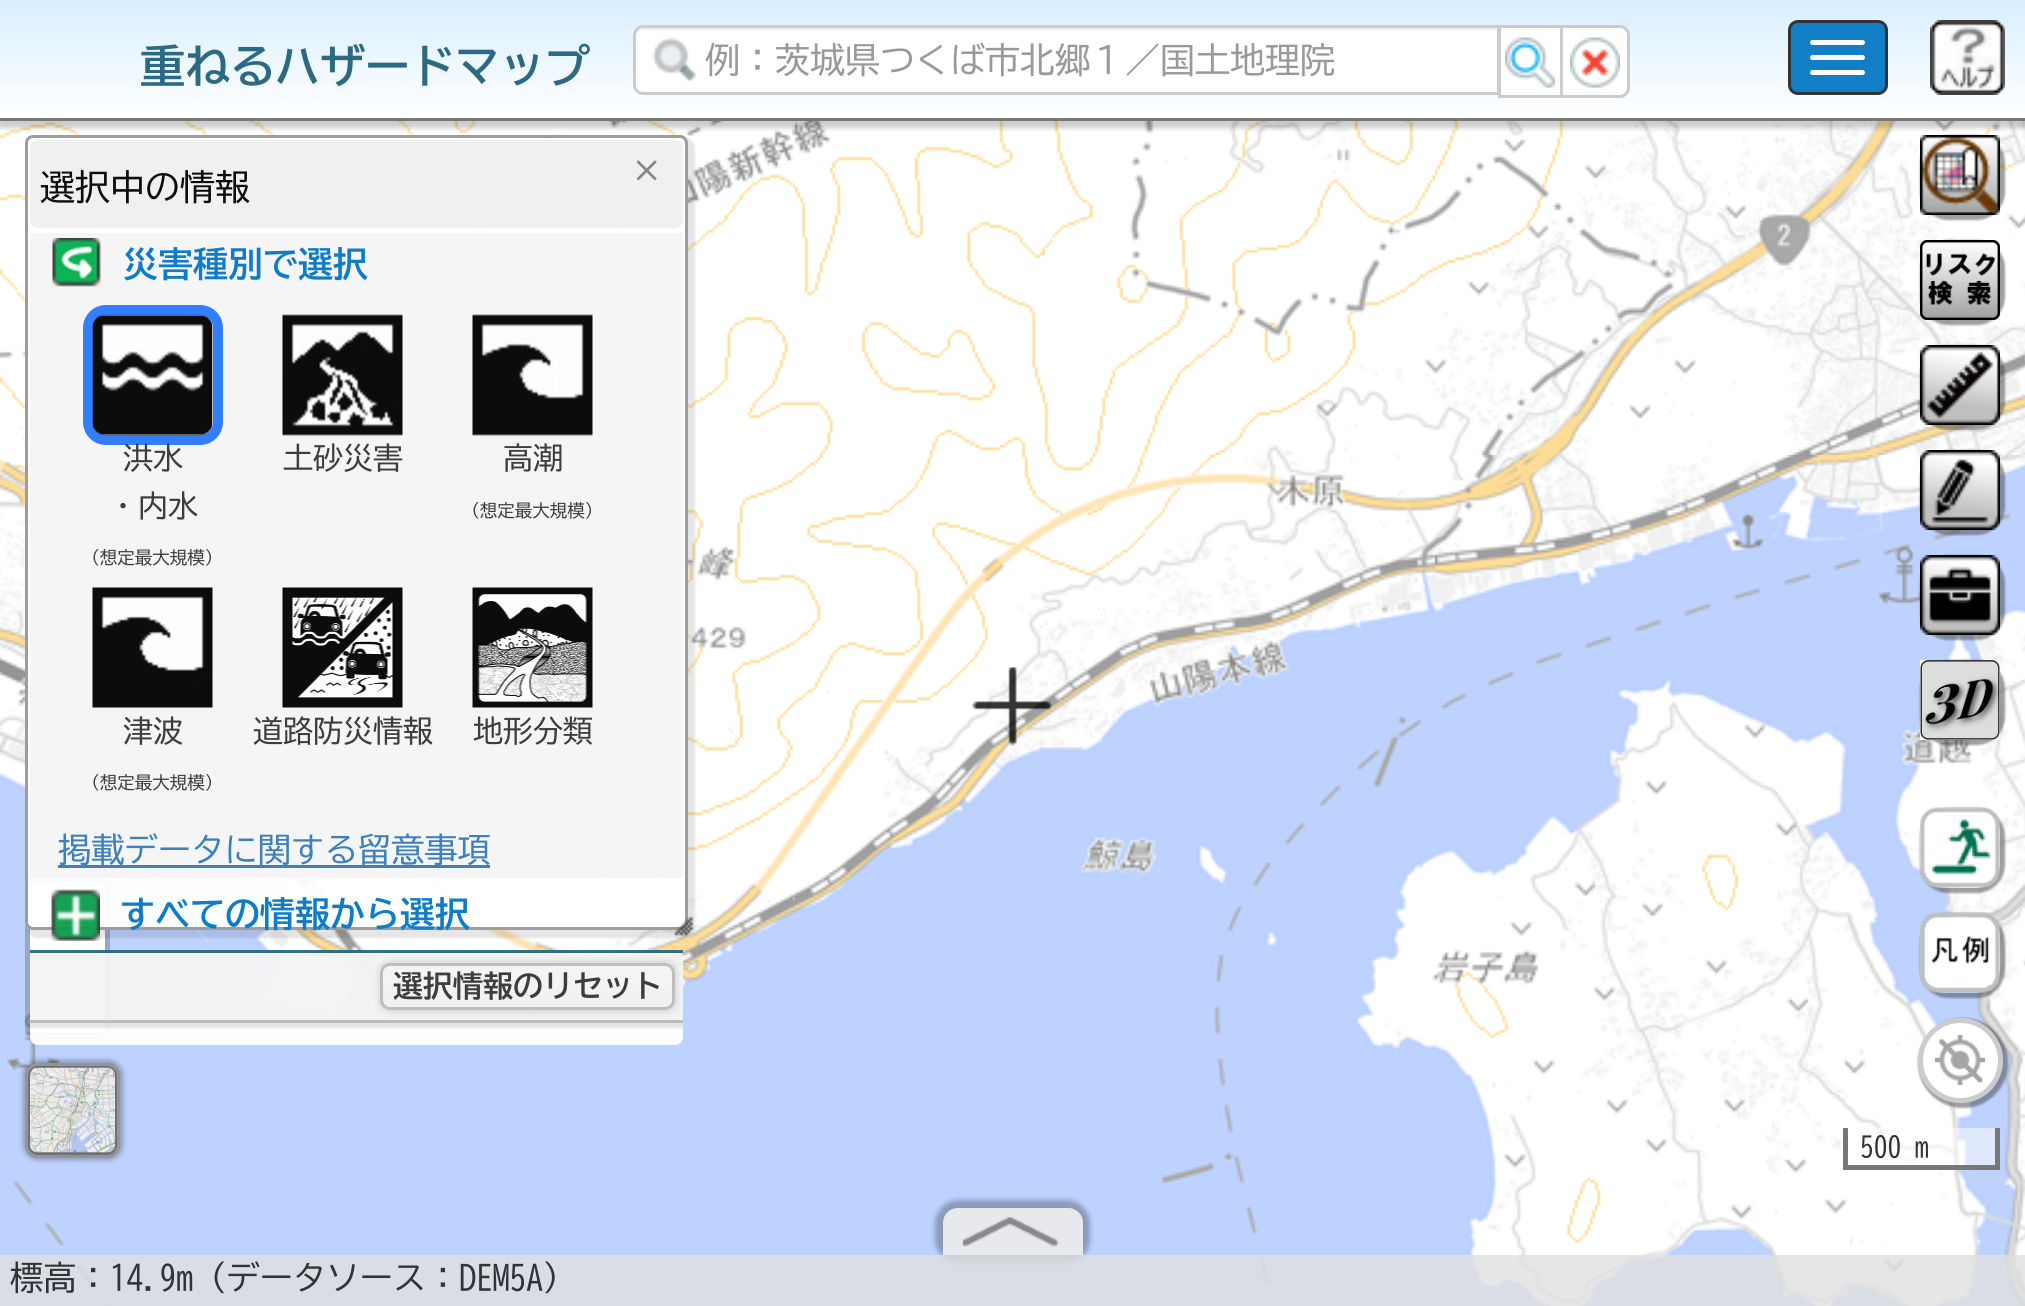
import math
import cairo

surface = cairo.ImageSurface(cairo.FORMAT_RGB24, 2025, 1306)
ctx = cairo.Context(surface)
options = cairo.FontOptions()
options.set_hint_metrics(cairo.HINT_METRICS_OFF)
options.set_hint_style(cairo.HINT_STYLE_NONE)
ctx.set_font_options(options)
ctx.set_miter_limit(4)


def set_color(code):
    ctx.set_source_rgb(*(v / 255 for v in bytes.fromhex(code[-6:])))


def draw_text(x, y, s, family, size, color, bold=False, italic=False):
    ctx.select_font_face(family, cairo.FONT_SLANT_ITALIC if italic else cairo.FONT_SLANT_NORMAL, cairo.FONT_WEIGHT_BOLD if bold else cairo.FONT_WEIGHT_NORMAL)
    ctx.set_font_size(size)
    set_color(color)
    ctx.move_to(x, y)
    ctx.show_text(s)


def fill_rect(x, y, w, h, color):
    set_color(color)
    ctx.rectangle(x, y, w, h)
    ctx.fill()


def rounded_rect(x, y, w, h, r):
    ctx.new_sub_path()
    for i, (u, v) in enumerate([(x + w - r, y + h - r), (x + r, y + h - r), (x + r, y + r), (x + w - r, y + r)]):
        ctx.arc(u, v, r, i * math.pi / 2, (i + 1) * math.pi / 2)
    ctx.close_path()


def draw_shadow(x, y, w, h, r, blur, alpha):
    ctx.push_group_with_content(cairo.CONTENT_ALPHA)
    ctx.set_operator(cairo.OPERATOR_SOURCE)
    for i in range(15, -16, -2):
        e = blur * i / 6
        if min(w, h) + 2 * e > 0:
            ctx.set_source_rgba(0, 0, 0, alpha * math.erfc((i - 1) / 8.5) / 2)
            rounded_rect(x - e, y - e, w + 2 * e, h + 2 * e, max(0, min(r + e + blur * .6, min(w, h) / 2 + e)))
            ctx.fill()
    ctx.mask(ctx.pop_group())


def draw_image(path, x, y, w, h):
    ctx.save()
    ctx.set_source_surface(cairo.ImageSurface.create_from_png(path), x, y)
    ctx.rectangle(x, y, w, h)
    ctx.fill()
    ctx.restore()


set_color("#ffffff")
ctx.paint()
draw_image("assets/img14.png", 0, 121, 155, 334)
draw_image("assets/img15.png", 155, 121, 640, 334)
draw_image("assets/img16.png", 795, 121, 640, 334)
draw_image("assets/img17.png", 1435, 121, 590, 334)
set_color("#404040")
draw_shadow(1920, 135, 85, 85, 28, 1, 0.5)
draw_image("assets/img26.png", 1920, 135, 80, 80)
set_color("#000000")
draw_shadow(-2, 3, 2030, 125, 0, 2.5, 0.2)
fill_rect(0, 118, 2025, 3, "#777777")
gradient = cairo.LinearGradient(1013, 0, 1013, 118)
gradient.add_color_stop_rgba(0, 0.851, 0.937, 1, 1)
gradient.add_color_stop_rgba(1, 1, 1, 1, 1)
ctx.set_source(gradient)
ctx.rectangle(0, 0, 2025, 118)
ctx.fill()
draw_text(140, 83, "重ねるハザードマップ", "BIZ UDGothic", 45, "#2c6983", bold=True)
set_color("#ffffff")
ctx.new_path()
ctx.move_to(643, 25)
ctx.line_to(1500, 25)
ctx.line_to(1500, 95)
ctx.line_to(643, 95)
ctx.curve_to(637.5, 95, 633, 90.5, 633, 85)
ctx.line_to(633, 35)
ctx.curve_to(633, 29.5, 637.5, 25, 643, 25)
ctx.close_path()
ctx.fill()
draw_image("assets/img1.png", 652, 37, 44, 45)
set_color("#ececec")
ctx.new_path()
ctx.move_to(642, 30)
ctx.line_to(1498, 30)
ctx.line_to(1498, 28)
ctx.line_to(643, 28)
ctx.curve_to(639, 28, 635, 32, 635, 36)
ctx.line_to(635, 38)
ctx.curve_to(635, 33, 638, 30, 642, 30)
ctx.close_path()
ctx.fill()
ctx.new_path()
ctx.move_to(643, 26.5)
ctx.line_to(1498.5, 26.5)
ctx.line_to(1498.5, 93.5)
ctx.line_to(643, 93.5)
ctx.curve_to(638.5, 93.5, 634.5, 89.5, 634.5, 85)
ctx.line_to(634.5, 35)
ctx.curve_to(634.5, 30.5, 638.5, 26.5, 643, 26.5)
ctx.close_path()
set_color("#cccccc")
ctx.set_line_width(3)
ctx.stroke()
draw_text(705, 73, "例：茨城県つくば市北郷１／国土地理院", "BIZ UDGothic", 35, "#999999")
set_color("#ffffff")
ctx.rectangle(1499.5, 26.5, 62, 70)
ctx.fill_preserve()
set_color("#cccccc")
ctx.stroke()
draw_image("assets/img2.png", 1505, 37, 50, 51)
set_color("#ffffff")
ctx.new_path()
ctx.move_to(1561.5, 26.5)
ctx.line_to(1620, 26.5)
ctx.curve_to(1624.5, 26.5, 1628.5, 30.5, 1628.5, 35)
ctx.line_to(1628.5, 88)
ctx.curve_to(1628.5, 92.5, 1624.5, 96.5, 1620, 96.5)
ctx.line_to(1561.5, 96.5)
ctx.close_path()
ctx.fill_preserve()
set_color("#cccccc")
ctx.stroke()
draw_image("assets/img3.png", 1570, 37, 50, 51)
set_color("#117ec6")
rounded_rect(1789.5, 21.5, 97, 72, 8.5)
ctx.fill_preserve()
set_color("#333333")
ctx.stroke()
set_color("#ffffff")
rounded_rect(1810, 40, 55, 5, 2.5)
ctx.fill()
rounded_rect(1810, 55, 55, 5, 2.5)
ctx.fill()
rounded_rect(1810, 70, 55, 5, 2.5)
ctx.fill()
draw_image("assets/img4.png", 1930, 20, 75, 75)
draw_image("assets/img18.png", 0, 455, 155, 640)
draw_image("assets/img19.png", 155, 455, 640, 640)
rounded_rect(27.5, 880.5, 80, 155, 7.5)
ctx.set_source_rgba(0, 0, 0, 0.2)
ctx.set_line_width(5)
ctx.stroke()
set_color("#ffffff")
ctx.new_path()
ctx.move_to(35, 883)
ctx.line_to(100, 883)
ctx.curve_to(103, 883, 105, 885, 105, 888)
ctx.line_to(105, 958)
ctx.line_to(30, 958)
ctx.line_to(30, 888)
ctx.curve_to(30, 885, 32, 883, 35, 883)
ctx.close_path()
ctx.fill()
ctx.save()
ctx.set_fill_rule(cairo.FILL_RULE_EVEN_ODD)
ctx.new_path()
ctx.move_to(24, 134)
ctx.line_to(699, 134)
ctx.line_to(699, 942)
ctx.line_to(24, 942)
ctx.close_path()
ctx.move_to(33, 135)
ctx.line_to(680, 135)
ctx.curve_to(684.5, 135, 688, 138.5, 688, 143)
ctx.line_to(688, 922)
ctx.curve_to(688, 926.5, 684.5, 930, 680, 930)
ctx.line_to(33, 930)
ctx.curve_to(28.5, 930, 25, 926.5, 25, 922)
ctx.line_to(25, 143)
ctx.curve_to(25, 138.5, 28.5, 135, 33, 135)
ctx.close_path()
ctx.clip()
set_color("#000000")
draw_shadow(28, 138, 667, 800, 10, 1, 0.1)
ctx.restore()
ctx.set_source_rgba(1, 1, 1, 0.95)
rounded_rect(25, 135, 663, 795, 8)
ctx.fill()
rounded_rect(26.5, 136.5, 660, 792, 6.5)
ctx.set_source_rgba(0.6, 0.6, 0.6, 0.95)
ctx.set_line_width(3)
ctx.stroke()
ctx.set_source_rgba(0.941, 0.941, 0.941, 0.95)
rounded_rect(30, 140, 653, 88, 8)
ctx.fill()
draw_text(40, 200, "選択中の情報", "BIZ UDGothic", 35, "#0c0c0c")
draw_text(630, 183, "×", "BIZ UDGothic", 33.3, "#868686", bold=True)
ctx.save()
rounded_rect(30, 228, 653, 817, 8)
ctx.clip()
ctx.set_source_rgba(0.961, 0.961, 0.961, 0.95)
ctx.rectangle(30, 233, 653, 645)
ctx.fill()
ctx.restore()
draw_image("assets/img5.png", 52, 238, 51, 49)
draw_text(123, 277, "災害種別で選択", "BIZ UDGothic", 35, "#0e7cc6", bold=True)
rounded_rect(88, 310, 130, 130, 18)
set_color("#327efd")
ctx.set_line_width(10)
ctx.stroke()
draw_image("assets/img6.png", 92, 314, 121, 122)
draw_text(123, 469, "洪水", "BIZ UDGothic", 30, "#3c3d3d")
draw_text(108, 517, "・内水", "BIZ UDGothic", 30, "#3c3d3d")
draw_text(91, 564, "(想定最大規模)", "BIZ UDGothic", 17.5, "#3c3d3d")
draw_image("assets/img7.png", 282, 314, 121, 122)
draw_text(283, 469, "土砂災害", "BIZ UDGothic", 30, "#3c3d3d")
draw_image("assets/img8.png", 472, 314, 121, 122)
draw_text(503, 469, "高潮", "BIZ UDGothic", 30, "#3c3d3d")
draw_text(471, 517, "(想定最大規模)", "BIZ UDGothic", 17.5, "#3c3d3d")
draw_image("assets/img9.png", 92, 587, 121, 121)
draw_text(123, 742, "津波", "BIZ UDGothic", 30, "#3c3d3d")
draw_text(91, 789, "(想定最大規模)", "BIZ UDGothic", 17.5, "#3c3d3d")
draw_image("assets/img10.png", 282, 587, 121, 121)
draw_text(253, 742, "道路防災情報", "BIZ UDGothic", 30, "#3c3d3d")
draw_image("assets/img11.png", 472, 587, 121, 121)
draw_text(473, 742, "地形分類", "BIZ UDGothic", 30, "#3c3d3d")
fill_rect(58, 865, 432, 3, "#3d80ba")
draw_text(58, 862, "掲載データに関する留意事項", "BIZ UDGothic", 33.3, "#3d80ba")
ctx.set_source_rgba(0.173, 0.412, 0.514, 0.95)
ctx.rectangle(30, 950, 653, 3)
ctx.fill()
draw_image("assets/img12.png", 51, 889, 49, 52)
draw_text(120, 927, "すべての情報から選択", "BIZ UDGothic", 35, "#0e7cc6", bold=True)
set_color("#ffffff")
ctx.new_path()
ctx.move_to(30, 958)
ctx.line_to(105, 958)
ctx.line_to(105, 1028)
ctx.curve_to(105, 1031, 103, 1033, 100, 1033)
ctx.line_to(35, 1033)
ctx.curve_to(32, 1033, 30, 1031, 30, 1028)
ctx.close_path()
ctx.fill()
ctx.set_source_rgba(1, 1, 1, 0.95)
ctx.new_path()
ctx.move_to(30, 1023)
ctx.line_to(683, 1023)
ctx.line_to(683, 1037)
ctx.curve_to(683, 1041.5, 679.5, 1045, 675, 1045)
ctx.line_to(38, 1045)
ctx.curve_to(33.5, 1045, 30, 1041.5, 30, 1037)
ctx.close_path()
ctx.fill()
fill_rect(30, 955, 75, 3, "#cccccc")
ctx.save()
rounded_rect(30, 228, 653, 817, 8)
ctx.clip()
ctx.set_fill_rule(cairo.FILL_RULE_EVEN_ODD)
ctx.new_path()
ctx.move_to(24, 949)
ctx.line_to(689, 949)
ctx.line_to(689, 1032)
ctx.line_to(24, 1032)
ctx.close_path()
ctx.move_to(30, 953)
ctx.line_to(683, 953)
ctx.line_to(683, 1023)
ctx.line_to(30, 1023)
ctx.close_path()
ctx.clip()
set_color("#000000")
draw_shadow(28, 953, 657, 75, 0, 1, 0.1)
ctx.restore()
ctx.set_source_rgba(0.957, 0.957, 0.957, 0.95)
ctx.rectangle(30, 953, 653, 70)
ctx.fill()
ctx.set_source_rgba(0.733, 0.733, 0.733, 0.95)
ctx.rectangle(30, 1020, 653, 3)
ctx.fill()
ctx.save()
ctx.set_fill_rule(cairo.FILL_RULE_EVEN_ODD)
ctx.new_path()
ctx.move_to(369, 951)
ctx.line_to(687, 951)
ctx.line_to(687, 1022)
ctx.line_to(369, 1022)
ctx.close_path()
ctx.move_to(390, 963)
ctx.line_to(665, 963)
ctx.curve_to(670.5, 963, 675, 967.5, 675, 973)
ctx.line_to(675, 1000)
ctx.curve_to(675, 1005.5, 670.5, 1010, 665, 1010)
ctx.line_to(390, 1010)
ctx.curve_to(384.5, 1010, 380, 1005.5, 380, 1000)
ctx.line_to(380, 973)
ctx.curve_to(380, 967.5, 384.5, 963, 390, 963)
ctx.close_path()
ctx.clip()
set_color("#000000")
draw_shadow(378, 960, 300, 53, 13, 2.5, 0.1)
ctx.restore()
ctx.save()
rounded_rect(380, 963, 295, 47, 10)
ctx.clip()
gradient = cairo.LinearGradient(528, 923, 528, 965)
gradient.add_color_stop_rgba(0, 0.961, 0.961, 0.961, 0.95)
gradient.add_color_stop_rgba(1, 0.941, 0.941, 0.941, 0.95)
ctx.set_source(gradient)
ctx.rectangle(380, 963, 295, 2)
ctx.fill()
gradient = cairo.LinearGradient(528, 965, 528, 1008)
gradient.add_color_stop_rgba(0, 0.961, 0.961, 0.961, 0.95)
gradient.add_color_stop_rgba(1, 0.941, 0.941, 0.941, 0.95)
ctx.set_source(gradient)
ctx.rectangle(380, 965, 295, 43)
ctx.fill()
gradient = cairo.LinearGradient(528, 1008, 528, 1050)
gradient.add_color_stop_rgba(0, 0.961, 0.961, 0.961, 0.95)
gradient.add_color_stop_rgba(1, 0.941, 0.941, 0.941, 0.95)
ctx.set_source(gradient)
ctx.rectangle(380, 1008, 295, 2)
ctx.fill()
ctx.restore()
rounded_rect(381.5, 964.5, 292, 44, 8.5)
ctx.set_line_width(3)
ctx.stroke()
draw_text(393, 997, "選択情報のリセット", "BIZ UDGothic", 30, "#3c3d3d", bold=True)
draw_image("assets/img13.png", 674, 916, 20, 20)
draw_image("assets/img20.png", 795, 455, 640, 640)
draw_image("assets/img21.png", 1435, 455, 590, 640)
draw_image("assets/img22.png", 0, 1095, 155, 211)
fill_rect(155, 1095, 640, 211, "#bed2ff")
draw_image("assets/img23.png", 795, 1095, 640, 211)
draw_image("assets/img24.png", 1435, 1095, 590, 211)
draw_image("assets/img25.png", 972, 667, 81, 79)
set_color("#404040")
draw_shadow(1920, 240, 85, 85, 28, 1, 0.5)
draw_image("assets/img27.png", 1920, 240, 80, 80)
draw_shadow(1920, 345, 85, 85, 28, 1, 0.5)
draw_image("assets/img28.png", 1920, 345, 80, 80)
draw_shadow(1920, 450, 85, 85, 28, 1, 0.5)
draw_image("assets/img29.png", 1920, 450, 80, 80)
draw_shadow(1920, 555, 85, 85, 28, 1, 0.5)
draw_image("assets/img30.png", 1920, 555, 80, 80)
draw_shadow(1920, 660, 85, 85, 28, 1, 0.5)
draw_image("assets/img31.png", 1920, 660, 80, 80)
ctx.save()
ctx.set_fill_rule(cairo.FILL_RULE_EVEN_ODD)
ctx.new_path()
ctx.move_to(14, 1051)
ctx.line_to(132, 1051)
ctx.line_to(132, 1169)
ctx.line_to(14, 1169)
ctx.close_path()
ctx.move_to(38, 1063)
ctx.line_to(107, 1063)
ctx.curve_to(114, 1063, 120, 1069, 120, 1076)
ctx.line_to(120, 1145)
ctx.curve_to(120, 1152, 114, 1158, 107, 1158)
ctx.line_to(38, 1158)
ctx.curve_to(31, 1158, 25, 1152, 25, 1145)
ctx.line_to(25, 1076)
ctx.curve_to(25, 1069, 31, 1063, 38, 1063)
ctx.close_path()
ctx.clip()
set_color("#000000")
draw_shadow(23, 1060, 100, 100, 15, 2.5, 0.27)
ctx.restore()
ctx.set_source_rgba(0.4, 0.4, 0.4, 0.9)
rounded_rect(25, 1063, 95, 95, 13)
ctx.fill()
rounded_rect(26.5, 1064.5, 92, 92, 11.5)
ctx.set_source_rgba(0.6, 0.6, 0.6, 0.9)
ctx.stroke()
draw_image("assets/img32.png", 30, 1067, 85, 86)
ctx.save()
ctx.set_fill_rule(cairo.FILL_RULE_EVEN_ODD)
ctx.new_path()
ctx.move_to(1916, 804)
ctx.line_to(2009, 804)
ctx.line_to(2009, 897)
ctx.line_to(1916, 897)
ctx.close_path()
ctx.move_to(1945, 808)
ctx.line_to(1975, 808)
ctx.curve_to(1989, 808, 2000, 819, 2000, 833)
ctx.line_to(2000, 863)
ctx.curve_to(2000, 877, 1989, 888, 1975, 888)
ctx.line_to(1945, 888)
ctx.curve_to(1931, 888, 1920, 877, 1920, 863)
ctx.line_to(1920, 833)
ctx.curve_to(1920, 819, 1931, 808, 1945, 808)
ctx.close_path()
ctx.clip()
set_color("#404040")
draw_shadow(1920, 808, 85, 85, 28, 1, 0.5)
ctx.restore()
draw_image("assets/img33.png", 1920, 807, 80, 81)
ctx.save()
ctx.set_fill_rule(cairo.FILL_RULE_EVEN_ODD)
ctx.new_path()
ctx.move_to(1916, 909)
ctx.line_to(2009, 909)
ctx.line_to(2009, 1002)
ctx.line_to(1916, 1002)
ctx.close_path()
ctx.move_to(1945, 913)
ctx.line_to(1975, 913)
ctx.curve_to(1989, 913, 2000, 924, 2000, 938)
ctx.line_to(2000, 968)
ctx.curve_to(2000, 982, 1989, 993, 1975, 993)
ctx.line_to(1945, 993)
ctx.curve_to(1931, 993, 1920, 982, 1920, 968)
ctx.line_to(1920, 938)
ctx.curve_to(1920, 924, 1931, 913, 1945, 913)
ctx.close_path()
ctx.clip()
set_color("#404040")
draw_shadow(1920, 913, 85, 85, 28, 1, 0.5)
ctx.restore()
draw_image("assets/img34.png", 1920, 912, 80, 81)
set_color("#404040")
draw_shadow(1918, 1018, 90, 90, 45, 1, 0.5)
set_color("#ffffff")
ctx.arc(1960.5, 1060.5, 42.5, 0, 2 * math.pi)
ctx.fill()
ctx.arc(1960.5, 1060.5, 40, 0, 2 * math.pi)
ctx.set_source_rgba(0, 0, 0, 0.2)
ctx.set_line_width(5)
ctx.stroke()
draw_image("assets/img35.png", 1935, 1035, 50, 50)
ctx.set_source_rgba(1, 1, 1, 0.5)
ctx.rectangle(1876, 1128, 119, 37)
ctx.fill()
fill_rect(1995, 1128, 5, 42, "#777777")
fill_rect(1843, 1165, 157, 5, "#777777")
fill_rect(1843, 1128, 5, 42, "#777777")
draw_text(1860, 1157, "500 m", "BIZ UDGothic", 27.5, "#333333")
set_color("#13151a")
draw_shadow(935, 1200, 155, 63, 23, 2.5, 0.3)
set_color("#e7e9ed")
ctx.new_path()
ctx.move_to(958, 1208)
ctx.line_to(1068, 1208)
ctx.curve_to(1076.5, 1208, 1083, 1214.5, 1083, 1223)
ctx.line_to(1083, 1255)
ctx.line_to(943, 1255)
ctx.line_to(943, 1223)
ctx.curve_to(943, 1214.5, 949.5, 1208, 958, 1208)
ctx.close_path()
ctx.fill()
draw_image("assets/img36.png", 962, 1217, 96, 30)
ctx.set_source_rgba(0.878, 0.878, 0.878, 0.8)
ctx.rectangle(0, 1255, 2025, 51)
ctx.fill()
draw_text(10, 1290, "標高：14.9m（データソース：DEM5A）", "BIZ UDGothic", 33.3, "#333333")
surface.write_to_png("output.png")
